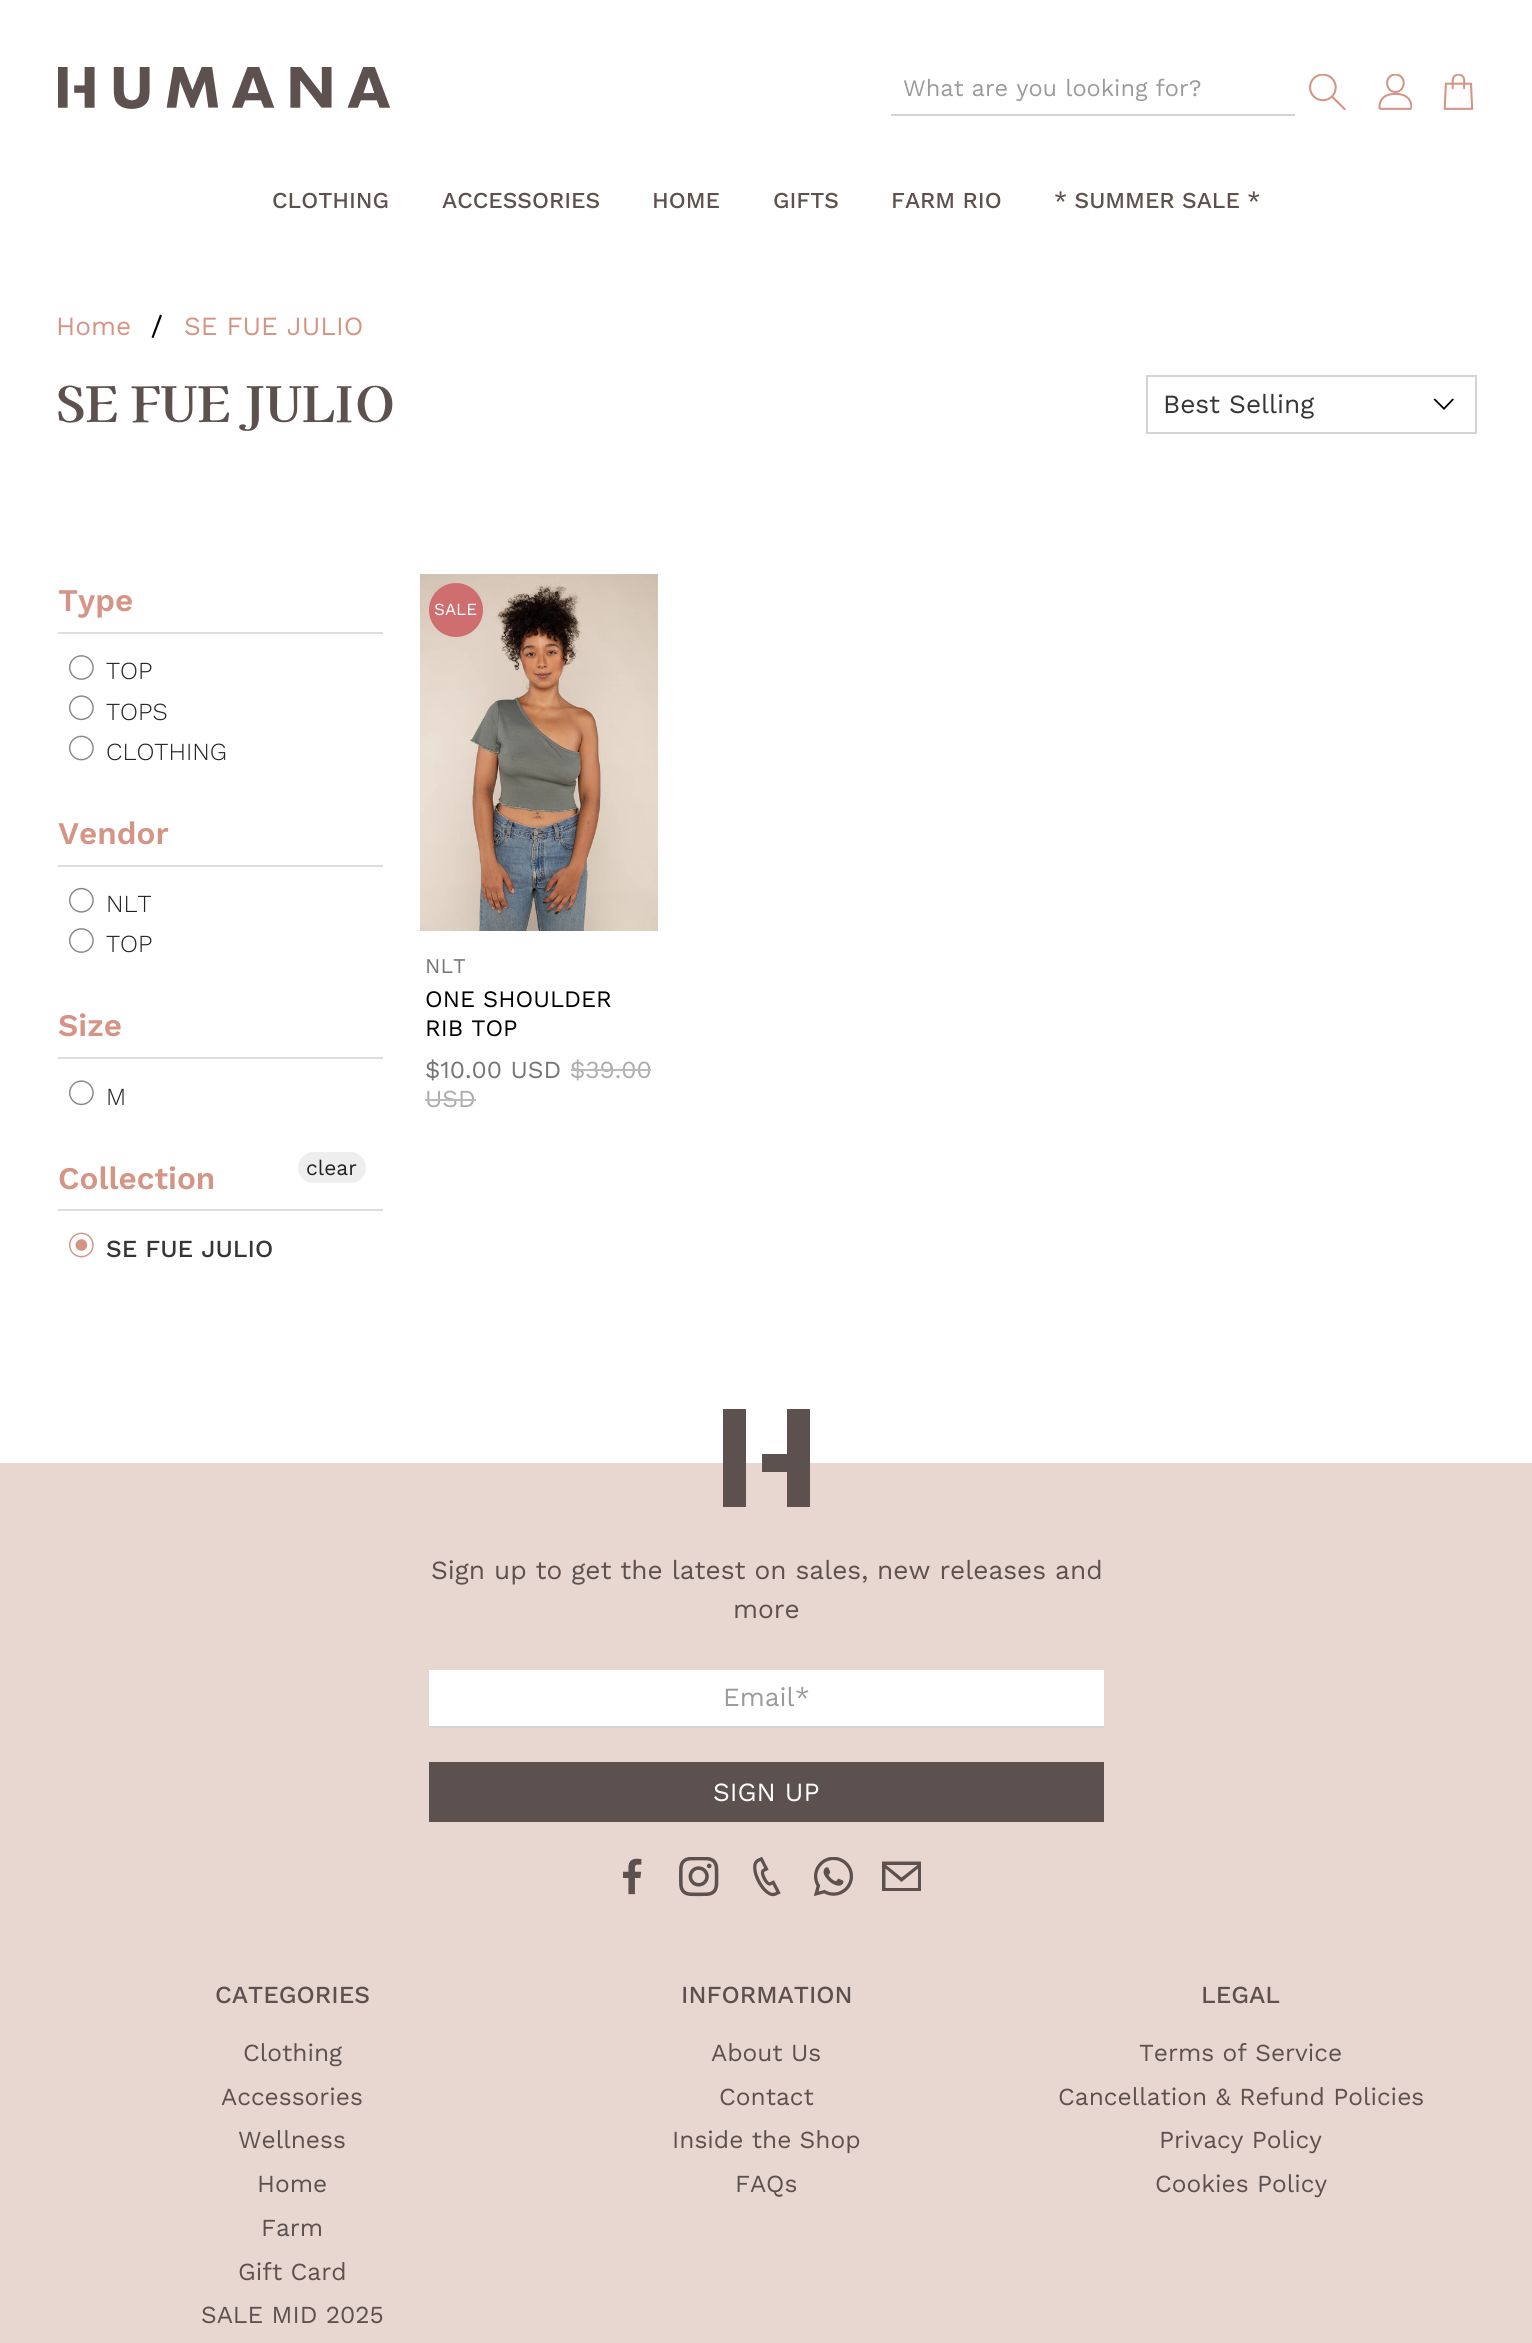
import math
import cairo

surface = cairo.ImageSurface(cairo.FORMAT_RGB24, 1532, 2343)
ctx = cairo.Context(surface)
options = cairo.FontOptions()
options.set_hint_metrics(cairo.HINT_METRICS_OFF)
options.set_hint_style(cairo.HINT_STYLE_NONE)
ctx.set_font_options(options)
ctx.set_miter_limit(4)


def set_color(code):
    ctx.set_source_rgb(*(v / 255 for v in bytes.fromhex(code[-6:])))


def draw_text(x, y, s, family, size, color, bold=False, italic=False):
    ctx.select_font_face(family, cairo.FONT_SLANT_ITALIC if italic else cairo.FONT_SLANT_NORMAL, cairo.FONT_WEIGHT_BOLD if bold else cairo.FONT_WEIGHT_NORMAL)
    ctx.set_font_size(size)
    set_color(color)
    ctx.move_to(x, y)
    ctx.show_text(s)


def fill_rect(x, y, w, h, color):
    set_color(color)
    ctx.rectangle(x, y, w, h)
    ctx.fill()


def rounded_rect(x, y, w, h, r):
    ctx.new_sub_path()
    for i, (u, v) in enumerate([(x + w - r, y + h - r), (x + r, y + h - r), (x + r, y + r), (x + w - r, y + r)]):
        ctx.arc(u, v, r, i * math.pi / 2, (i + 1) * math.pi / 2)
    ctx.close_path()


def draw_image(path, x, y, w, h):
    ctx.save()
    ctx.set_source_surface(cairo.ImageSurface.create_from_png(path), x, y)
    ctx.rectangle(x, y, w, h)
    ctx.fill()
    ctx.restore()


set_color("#ffffff")
ctx.paint()
draw_image("assets/img1.png", 58, 67, 332, 42)
fill_rect(891, 114, 404, 2, "#d3d3d3")
draw_text(903, 96, "What are you looking for?", "Work Sans", 23.6, "#9b9b9b")
draw_image("assets/img2.png", 1309, 74, 37, 36)
draw_image("assets/img3.png", 1378, 74, 34, 36)
draw_image("assets/img4.png", 1443, 74, 31, 36)
draw_text(272, 208, "CLOTHING", "Work Sans Medium", 22.75, "#5c514e")
draw_text(442, 208, "ACCESSORIES", "Work Sans Medium", 22.75, "#5c514e")
draw_text(652, 208, "HOME", "Work Sans Medium", 22.75, "#5c514e")
draw_text(773, 208, "GIFTS", "Work Sans Medium", 22.75, "#5c514e")
draw_text(891, 208, "FARM RIO", "Work Sans Medium", 22.75, "#5c514e")
draw_text(1054, 208, "* SUMMER SALE *", "Work Sans Medium", 22.75, "#5c514e")
draw_text(56, 335, "Home", "Work Sans", 26.25, "#d59586")
set_color("#000000")
ctx.new_path()
ctx.move_to(151.5, 337.5)
ctx.line_to(160, 314.5)
ctx.line_to(162, 315.5)
ctx.line_to(153.5, 338)
ctx.close_path()
ctx.fill()
draw_text(184, 335, "SE FUE JULIO", "Work Sans", 26.25, "#d59586")
draw_text(56, 422, "SE FUE JULIO", "Kaisei Decol", 49, "#5c514e", bold=True)
ctx.rectangle(1147, 376, 329, 57)
set_color("#d3d3d3")
ctx.stroke()
draw_text(1163, 413, "Best Selling", "Work Sans", 26.25, "#363636")
set_color("#000000")
ctx.new_path()
ctx.move_to(1444, 410)
ctx.line_to(1433.5, 399.5)
ctx.line_to(1435, 398.5)
ctx.line_to(1444, 407.5)
ctx.line_to(1452.5, 398.5)
ctx.line_to(1454, 399.5)
ctx.close_path()
ctx.fill()
fill_rect(58, 632, 325, 2, "#dddddd")
draw_text(58, 611, "Type", "Work Sans SemiBold", 31.5, "#d59586")
draw_image("assets/img5.png", 69, 655, 25, 25)
draw_text(106, 679, "TOP", "Work Sans Light", 24.5, "#222222")
draw_image("assets/img6.png", 69, 695, 25, 26)
draw_text(106, 720, "TOPS", "Work Sans Light", 24.5, "#222222")
draw_image("assets/img7.png", 69, 735, 25, 26)
draw_text(106, 760, "CLOTHING", "Work Sans Light", 24.5, "#222222")
fill_rect(58, 865, 325, 2, "#dddddd")
draw_text(58, 844, "Vendor", "Work Sans SemiBold", 31.5, "#d59586")
draw_image("assets/img8.png", 69, 887, 25, 26)
draw_text(106, 912, "NLT", "Work Sans Light", 24.5, "#222222")
draw_image("assets/img5.png", 69, 928, 25, 25)
draw_text(106, 952, "TOP", "Work Sans Light", 24.5, "#222222")
fill_rect(58, 1057, 325, 2, "#dddddd")
draw_text(58, 1036, "Size", "Work Sans SemiBold", 31.5, "#d59586")
draw_image("assets/img6.png", 69, 1080, 25, 26)
draw_text(106, 1105, "M", "Work Sans Light", 24.5, "#222222")
set_color("#eeeeee")
rounded_rect(298, 1152, 68, 31, 15.5)
ctx.fill()
draw_text(306, 1175, "clear", "Work Sans", 21, "#222222")
draw_image("assets/img9.png", 69, 1232, 25, 26)
draw_text(106, 1257, "SE FUE JULIO", "Work Sans Medium", 24.5, "#363636")
fill_rect(58, 1209, 325, 2, "#dddddd")
draw_text(58, 1189, "Collection", "Work Sans SemiBold", 31.5, "#d59586")
draw_image("assets/img10.png", 420, 574, 238, 357)
set_color("#cf6e6e")
ctx.arc(456, 610, 27, 0, 2 * math.pi)
ctx.fill()
draw_text(434, 615, "SALE", "Work Sans", 17, "#ffffff")
draw_text(425, 973, "NLT", "Work Sans", 21, "#757575")
draw_text(425, 1007, "ONE SHOULDER", "Work Sans", 23.6, "#000000")
draw_text(425, 1036, "RIB TOP", "Work Sans", 23.6, "#000000")
draw_text(425, 1078, "$10.00 USD", "Work Sans", 24.5, "#757575")
draw_text(570, 1078, "$39.00", "Work Sans", 24.5, "#acacac")
fill_rect(571, 1069, 80, 2, "#bababa")
draw_text(425, 1107, "USD", "Work Sans", 24.5, "#acacac")
fill_rect(425, 1099, 51, 2, "#bababa")
fill_rect(0, 1463, 1532, 880, "#e8d6d1")
fill_rect(723, 1409, 23, 98, "#5c514e")
ctx.new_path()
ctx.move_to(787, 1454)
ctx.line_to(762, 1454)
ctx.line_to(762, 1472)
ctx.line_to(787, 1472)
ctx.line_to(787, 1507)
ctx.line_to(810, 1507)
ctx.line_to(810, 1409)
ctx.line_to(787, 1409)
ctx.close_path()
ctx.fill()
draw_text(431, 1579, "Sign up to get the latest on sales, new releases and", "Work Sans", 26.25, "#5c514e")
draw_text(733, 1618, "more", "Work Sans", 26.25, "#5c514e")
fill_rect(429, 1670, 675, 56, "#ffffff")
fill_rect(429, 1726, 675, 2, "#d3d3d3")
draw_text(723, 1706, "Email*", "Work Sans", 26.25, "#9b9b9b")
fill_rect(429, 1762, 675, 60, "#5c514e")
draw_text(713, 1801, "SIGN UP", "Work Sans", 26.25, "#ffffff")
draw_image("assets/img11.png", 623, 1858, 19, 37)
draw_image("assets/img12.png", 679, 1857, 40, 40)
draw_image("assets/img13.png", 753, 1857, 28, 40)
draw_image("assets/img14.png", 814, 1857, 40, 39)
ctx.save()
ctx.rectangle(882, 1857, 39, 40)
ctx.clip()
set_color("#5c514e")
ctx.new_path()
ctx.move_to(882, 1861.5)
ctx.line_to(882, 1891)
ctx.line_to(921.5, 1891)
ctx.line_to(921.5, 1861.5)
ctx.close_path()
ctx.move_to(917.5, 1865)
ctx.line_to(901.5, 1877.5)
ctx.line_to(886, 1865)
ctx.close_path()
ctx.move_to(885.5, 1888)
ctx.line_to(885.5, 1868.5)
ctx.line_to(901.5, 1882)
ctx.line_to(918, 1868.5)
ctx.line_to(918, 1888)
ctx.close_path()
ctx.fill()
ctx.restore()
draw_text(215, 2003, "CATEGORIES", "Work Sans Medium", 24.5, "#5c514e")
draw_text(243, 2061, "Clothing", "Work Sans", 24.5, "#5c514e")
draw_text(221, 2105, "Accessories", "Work Sans", 24.5, "#5c514e")
draw_text(238, 2148, "Wellness", "Work Sans", 24.5, "#5c514e")
draw_text(257, 2192, "Home", "Work Sans", 24.5, "#5c514e")
draw_text(261, 2236, "Farm", "Work Sans", 24.5, "#5c514e")
draw_text(238, 2280, "Gift Card", "Work Sans", 24.5, "#5c514e")
draw_text(201, 2323, "SALE MID 2025", "Work Sans", 24.5, "#5c514e")
draw_text(681, 2003, "INFORMATION", "Work Sans Medium", 24.5, "#5c514e")
draw_text(711, 2061, "About Us", "Work Sans", 24.5, "#5c514e")
draw_text(719, 2105, "Contact", "Work Sans", 24.5, "#5c514e")
draw_text(672, 2148, "Inside the Shop", "Work Sans", 24.5, "#5c514e")
draw_text(735, 2192, "FAQs", "Work Sans", 24.5, "#5c514e")
draw_text(1201, 2003, "LEGAL", "Work Sans Medium", 24.5, "#5c514e")
draw_text(1139, 2061, "Terms of Service", "Work Sans", 24.5, "#5c514e")
draw_text(1058, 2105, "Cancellation & Refund Policies", "Work Sans", 24.5, "#5c514e")
draw_text(1159, 2148, "Privacy Policy", "Work Sans", 24.5, "#5c514e")
draw_text(1155, 2192, "Cookies Policy", "Work Sans", 24.5, "#5c514e")
surface.write_to_png("output.png")
